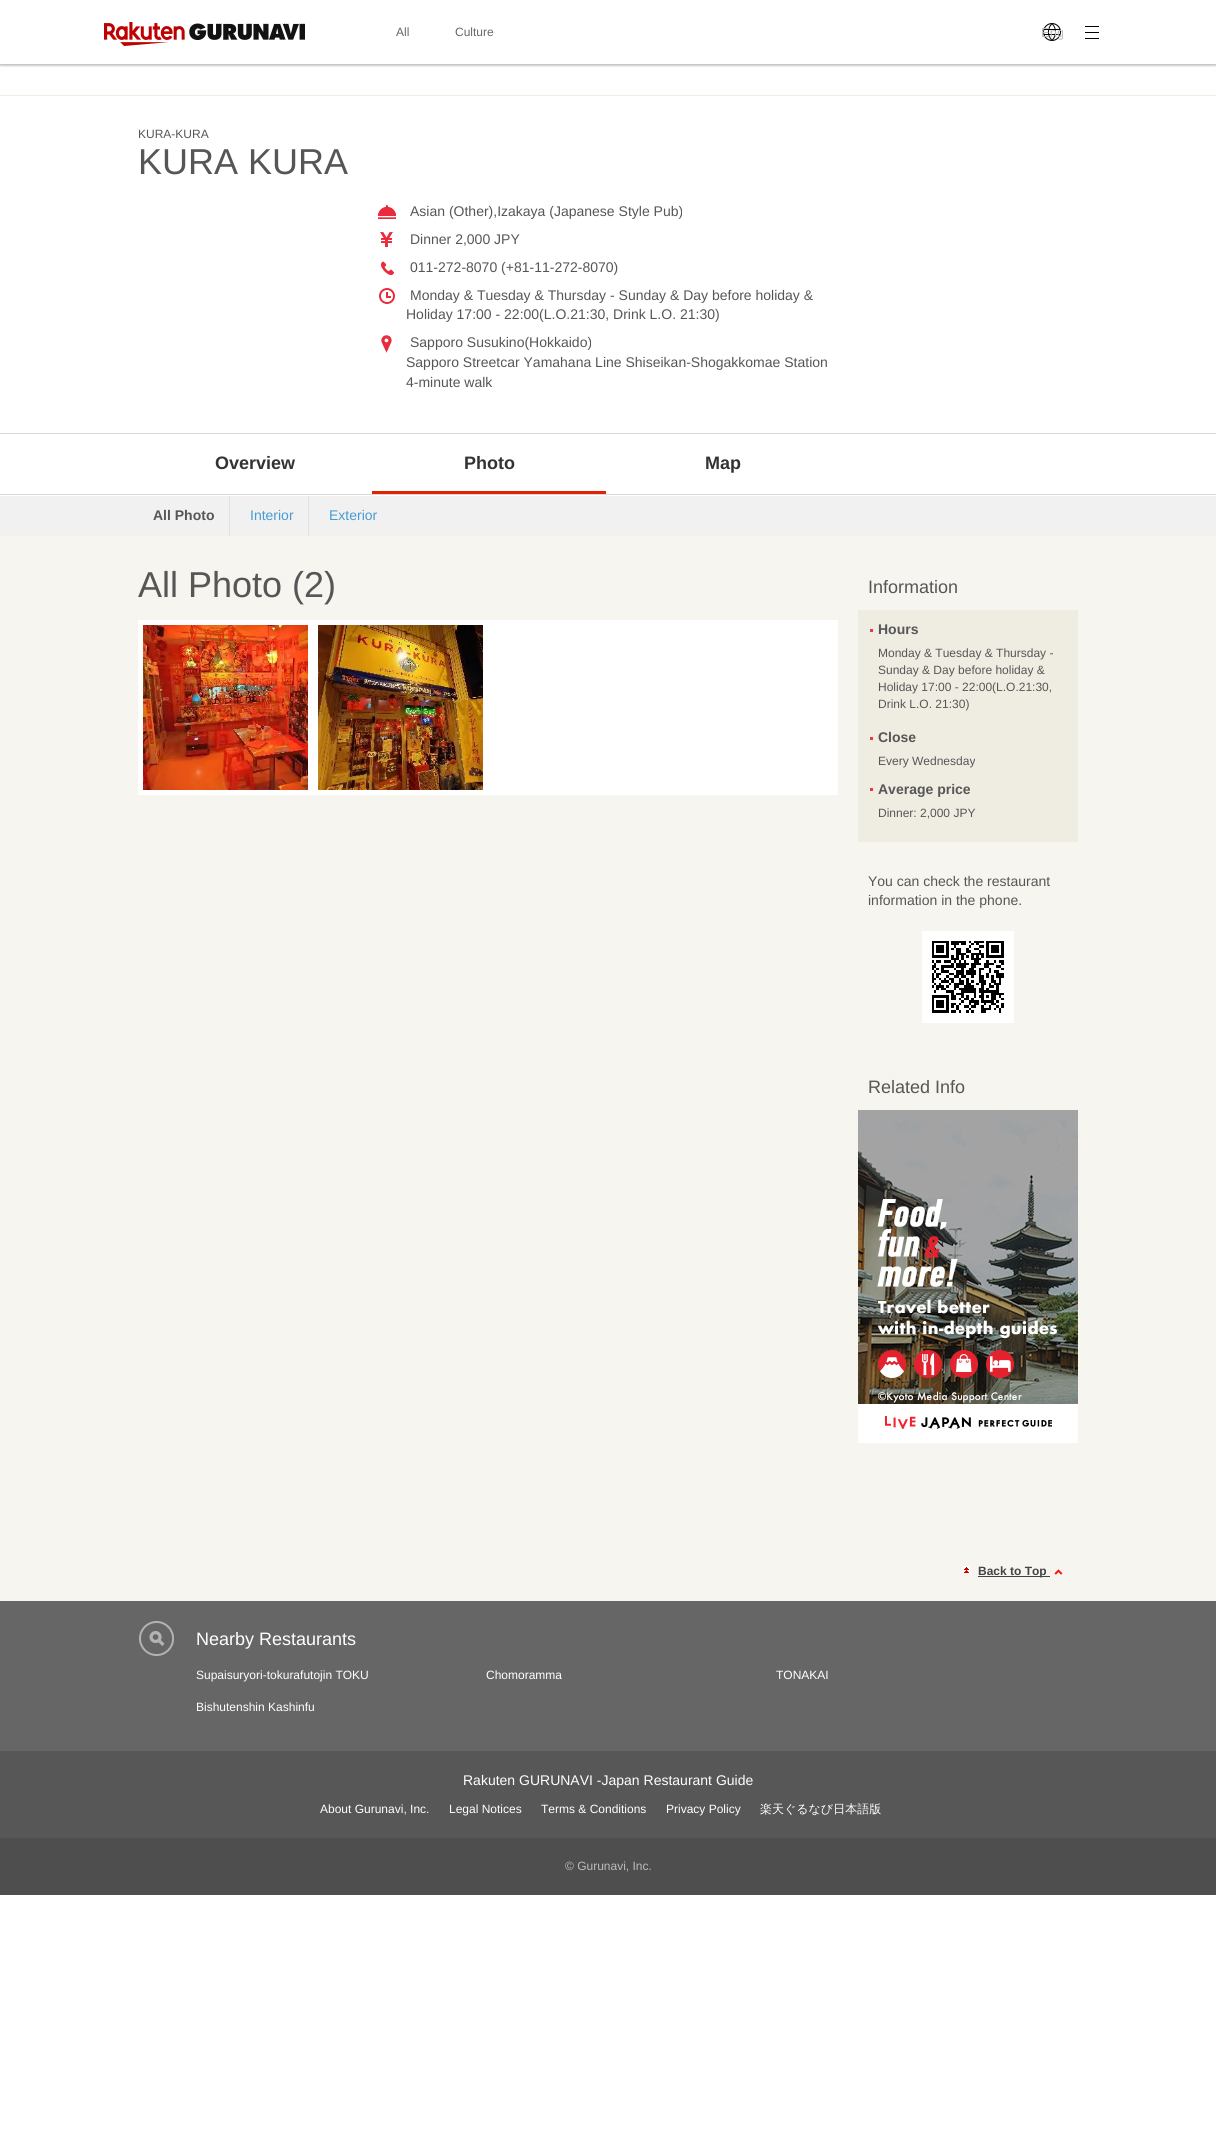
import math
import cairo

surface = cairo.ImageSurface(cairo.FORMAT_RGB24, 1216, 2131)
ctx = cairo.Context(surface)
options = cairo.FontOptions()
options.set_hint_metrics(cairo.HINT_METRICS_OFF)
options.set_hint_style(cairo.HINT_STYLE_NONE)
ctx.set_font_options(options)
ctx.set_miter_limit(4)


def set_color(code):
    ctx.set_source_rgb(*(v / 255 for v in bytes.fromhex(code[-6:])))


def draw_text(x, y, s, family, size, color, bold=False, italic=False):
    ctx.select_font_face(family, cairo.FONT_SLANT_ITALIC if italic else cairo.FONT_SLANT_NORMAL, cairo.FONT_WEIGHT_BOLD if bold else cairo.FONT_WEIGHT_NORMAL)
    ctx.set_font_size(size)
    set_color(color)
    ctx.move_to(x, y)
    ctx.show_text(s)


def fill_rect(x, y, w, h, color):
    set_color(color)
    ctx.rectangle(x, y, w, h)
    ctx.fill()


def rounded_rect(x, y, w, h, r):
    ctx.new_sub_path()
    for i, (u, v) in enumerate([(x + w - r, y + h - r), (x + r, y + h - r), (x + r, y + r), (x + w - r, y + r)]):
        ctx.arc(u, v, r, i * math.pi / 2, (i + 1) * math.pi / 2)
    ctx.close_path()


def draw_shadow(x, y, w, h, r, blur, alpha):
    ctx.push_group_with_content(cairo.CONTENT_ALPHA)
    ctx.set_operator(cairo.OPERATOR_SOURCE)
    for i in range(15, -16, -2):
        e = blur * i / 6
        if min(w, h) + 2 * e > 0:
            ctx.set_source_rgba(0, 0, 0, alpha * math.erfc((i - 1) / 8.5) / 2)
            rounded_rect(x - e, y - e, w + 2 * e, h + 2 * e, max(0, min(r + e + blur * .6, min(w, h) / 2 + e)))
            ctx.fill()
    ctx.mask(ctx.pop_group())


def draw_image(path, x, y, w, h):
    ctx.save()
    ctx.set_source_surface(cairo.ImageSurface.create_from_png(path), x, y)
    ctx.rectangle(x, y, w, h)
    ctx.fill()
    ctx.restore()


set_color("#ffffff")
ctx.paint()
ctx.save()
ctx.rectangle(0, 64, 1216, 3)
ctx.clip()
set_color("#000000")
draw_shadow(0, 1, 1216, 64, 0, 1.5, 0.2)
draw_shadow(0, 2, 1216, 64, 0, 1, 0.12)
ctx.restore()
draw_image("assets/img1.png", 104, 22, 201, 24)
draw_text(396, 36, "All", "Liberation Sans", 12, "#666666")
draw_text(455, 36, "Culture", "Liberation Sans", 12, "#666666")
draw_image("assets/img2.png", 1043, 23, 18, 18)
ctx.save()
ctx.rectangle(1041, 25, 22, 15)
ctx.clip()
draw_text(1041, 37, "Eng", "Liberation Sans", 13, "#bbbbbb")
ctx.restore()
fill_rect(1085, 26, 14, 1, "#000000")
fill_rect(1085, 38, 14, 1, "#000000")
fill_rect(1085, 32, 14, 1, "#000000")
fill_rect(0, 95, 1216, 1, "#efece2")
fill_rect(0, 433, 1216, 1, "#d8d8d8")
draw_text(138, 138, "KURA‐KURA", "Liberation Sans", 12, "#565656")
draw_text(138, 174, "KURA KURA", "Liberation Sans", 36, "#565656")
draw_image("assets/img3.png", 378, 205, 18, 14)
draw_text(410, 216, "Asian (Other),Izakaya (Japanese Style Pub)", "Liberation Sans", 14, "#565656")
draw_image("assets/img4.png", 380, 232, 13, 15)
draw_text(410, 244, "Dinner 2,000 JPY", "Liberation Sans", 14, "#565656")
draw_image("assets/img5.png", 381, 261, 13, 14)
draw_text(410, 272, "011-272-8070 (+81-11-272-8070)", "Liberation Sans", 14, "#565656")
draw_image("assets/img6.png", 379, 288, 16, 16)
draw_text(410, 300, "Monday & Tuesday & Thursday - Sunday & Day before holiday &", "Liberation Sans", 14, "#565656")
draw_text(406, 319, "Holiday 17:00 - 22:00(L.O.21:30, Drink L.O. 21:30)", "Liberation Sans", 14, "#565656")
draw_image("assets/img7.png", 381, 335, 11, 18)
draw_text(410, 347, "Sapporo Susukino(Hokkaido)", "Liberation Sans", 14, "#565656")
draw_text(406, 367, "Sapporo Streetcar Yamahana Line Shiseikan-Shogakkomae Station", "Liberation Sans", 14, "#565656")
draw_text(406, 387, "4-minute walk", "Liberation Sans", 14, "#565656")
fill_rect(0, 494, 1216, 1, "#d8d8d8")
draw_text(215, 469, "Overview", "Liberation Sans", 18, "#333333", bold=True)
fill_rect(372, 491, 234, 3, "#e51f00")
draw_text(464, 469, "Photo", "Liberation Sans", 18, "#333333", bold=True)
draw_text(705, 469, "Map", "Liberation Sans", 18, "#333333", bold=True)
fill_rect(0, 496, 1216, 40, "#f1f1f1")
fill_rect(229, 496, 1, 40, "#e1e1e1")
draw_text(153, 520, "All Photo", "Liberation Sans", 14, "#565656", bold=True)
fill_rect(308, 496, 1, 40, "#e1e1e1")
draw_text(250, 520, "Interior", "Liberation Sans", 14, "#489ad4")
draw_text(329, 520, "Exterior", "Liberation Sans", 14, "#489ad4")
fill_rect(0, 536, 1216, 1065, "#f7f5f0")
draw_text(138, 597, "All Photo (2)", "Liberation Sans", 36, "#565656")
fill_rect(138, 620, 700, 175, "#ffffff")
draw_image("assets/img8.png", 143, 625, 165, 165)
draw_image("assets/img9.png", 318, 625, 165, 165)
draw_text(868, 593, "Information", "Liberation Sans", 18, "#565656")
fill_rect(858, 610, 220, 232, "#efece2")
fill_rect(870, 629, 3, 3, "#ea3944")
draw_text(878, 634, "Hours", "Liberation Sans", 14, "#565656", bold=True)
draw_text(878, 657, "Monday & Tuesday & Thursday -", "Liberation Sans", 12, "#565656")
draw_text(878, 674, "Sunday & Day before holiday &", "Liberation Sans", 12, "#565656")
draw_text(878, 691, "Holiday 17:00 - 22:00(L.O.21:30,", "Liberation Sans", 12, "#565656")
draw_text(878, 708, "Drink L.O. 21:30)", "Liberation Sans", 12, "#565656")
fill_rect(870, 737, 3, 3, "#ea3944")
draw_text(878, 742, "Close", "Liberation Sans", 14, "#565656", bold=True)
draw_text(878, 765, "Every Wednesday", "Liberation Sans", 12, "#565656")
fill_rect(870, 788, 3, 3, "#ea3944")
draw_text(878, 794, "Average price", "Liberation Sans", 14, "#565656", bold=True)
draw_text(878, 817, "Dinner: 2,000 JPY", "Liberation Sans", 12, "#565656")
draw_text(868, 886, "You can check the restaurant", "Liberation Sans", 14, "#565656")
draw_text(868, 905, "information in the phone.", "Liberation Sans", 14, "#565656")
draw_image("assets/img10.png", 922, 931, 92, 92)
draw_text(868, 1093, "Related Info", "Liberation Sans", 18, "#565656")
fill_rect(858, 1429, 220, 14, "#ffffff")
draw_image("assets/img11.png", 858, 1110, 220, 319)
draw_image("assets/img12.png", 963, 1566, 7, 7)
fill_rect(978, 1576, 72, 1, "#444444")
draw_text(978, 1575, "Back to Top", "Liberation Sans", 12, "#444444", bold=True)
draw_image("assets/img13.png", 1054, 1569, 9, 6)
fill_rect(0, 1601, 1216, 150, "#666666")
draw_image("assets/img14.png", 139, 1621, 35, 35)
draw_text(196, 1645, "Nearby Restaurants", "Liberation Sans", 18, "#ffffff")
draw_text(196, 1679, "Supaisuryori-tokurafutojin TOKU", "Liberation Sans", 12, "#ffffff")
draw_text(486, 1679, "Chomoramma", "Liberation Sans", 12, "#ffffff")
draw_text(776, 1679, "TONAKAI", "Liberation Sans", 12, "#ffffff")
draw_text(196, 1711, "Bishutenshin Kashinfu", "Liberation Sans", 12, "#ffffff")
fill_rect(0, 1751, 1216, 87, "#575757")
draw_text(463, 1785, "Rakuten GURUNAVI -Japan Restaurant Guide", "Liberation Sans", 14, "#ffffff")
draw_text(320, 1813, "About Gurunavi, Inc.", "Liberation Sans", 12, "#ffffff")
draw_text(449, 1813, "Legal Notices", "Liberation Sans", 12, "#ffffff")
draw_text(541, 1813, "Terms & Conditions", "Liberation Sans", 12, "#ffffff")
draw_text(666, 1813, "Privacy Policy", "Liberation Sans", 12, "#ffffff")
draw_text(760, 1813, "楽天ぐるなび日本語版", "WenQuanYi Zen Hei Medium", 12, "#ffffff")
fill_rect(0, 1838, 1216, 57, "#4e4e4e")
draw_text(565, 1870, "© Gurunavi, Inc.", "Liberation Sans", 12, "#bbbbbb")
surface.write_to_png("output.png")
